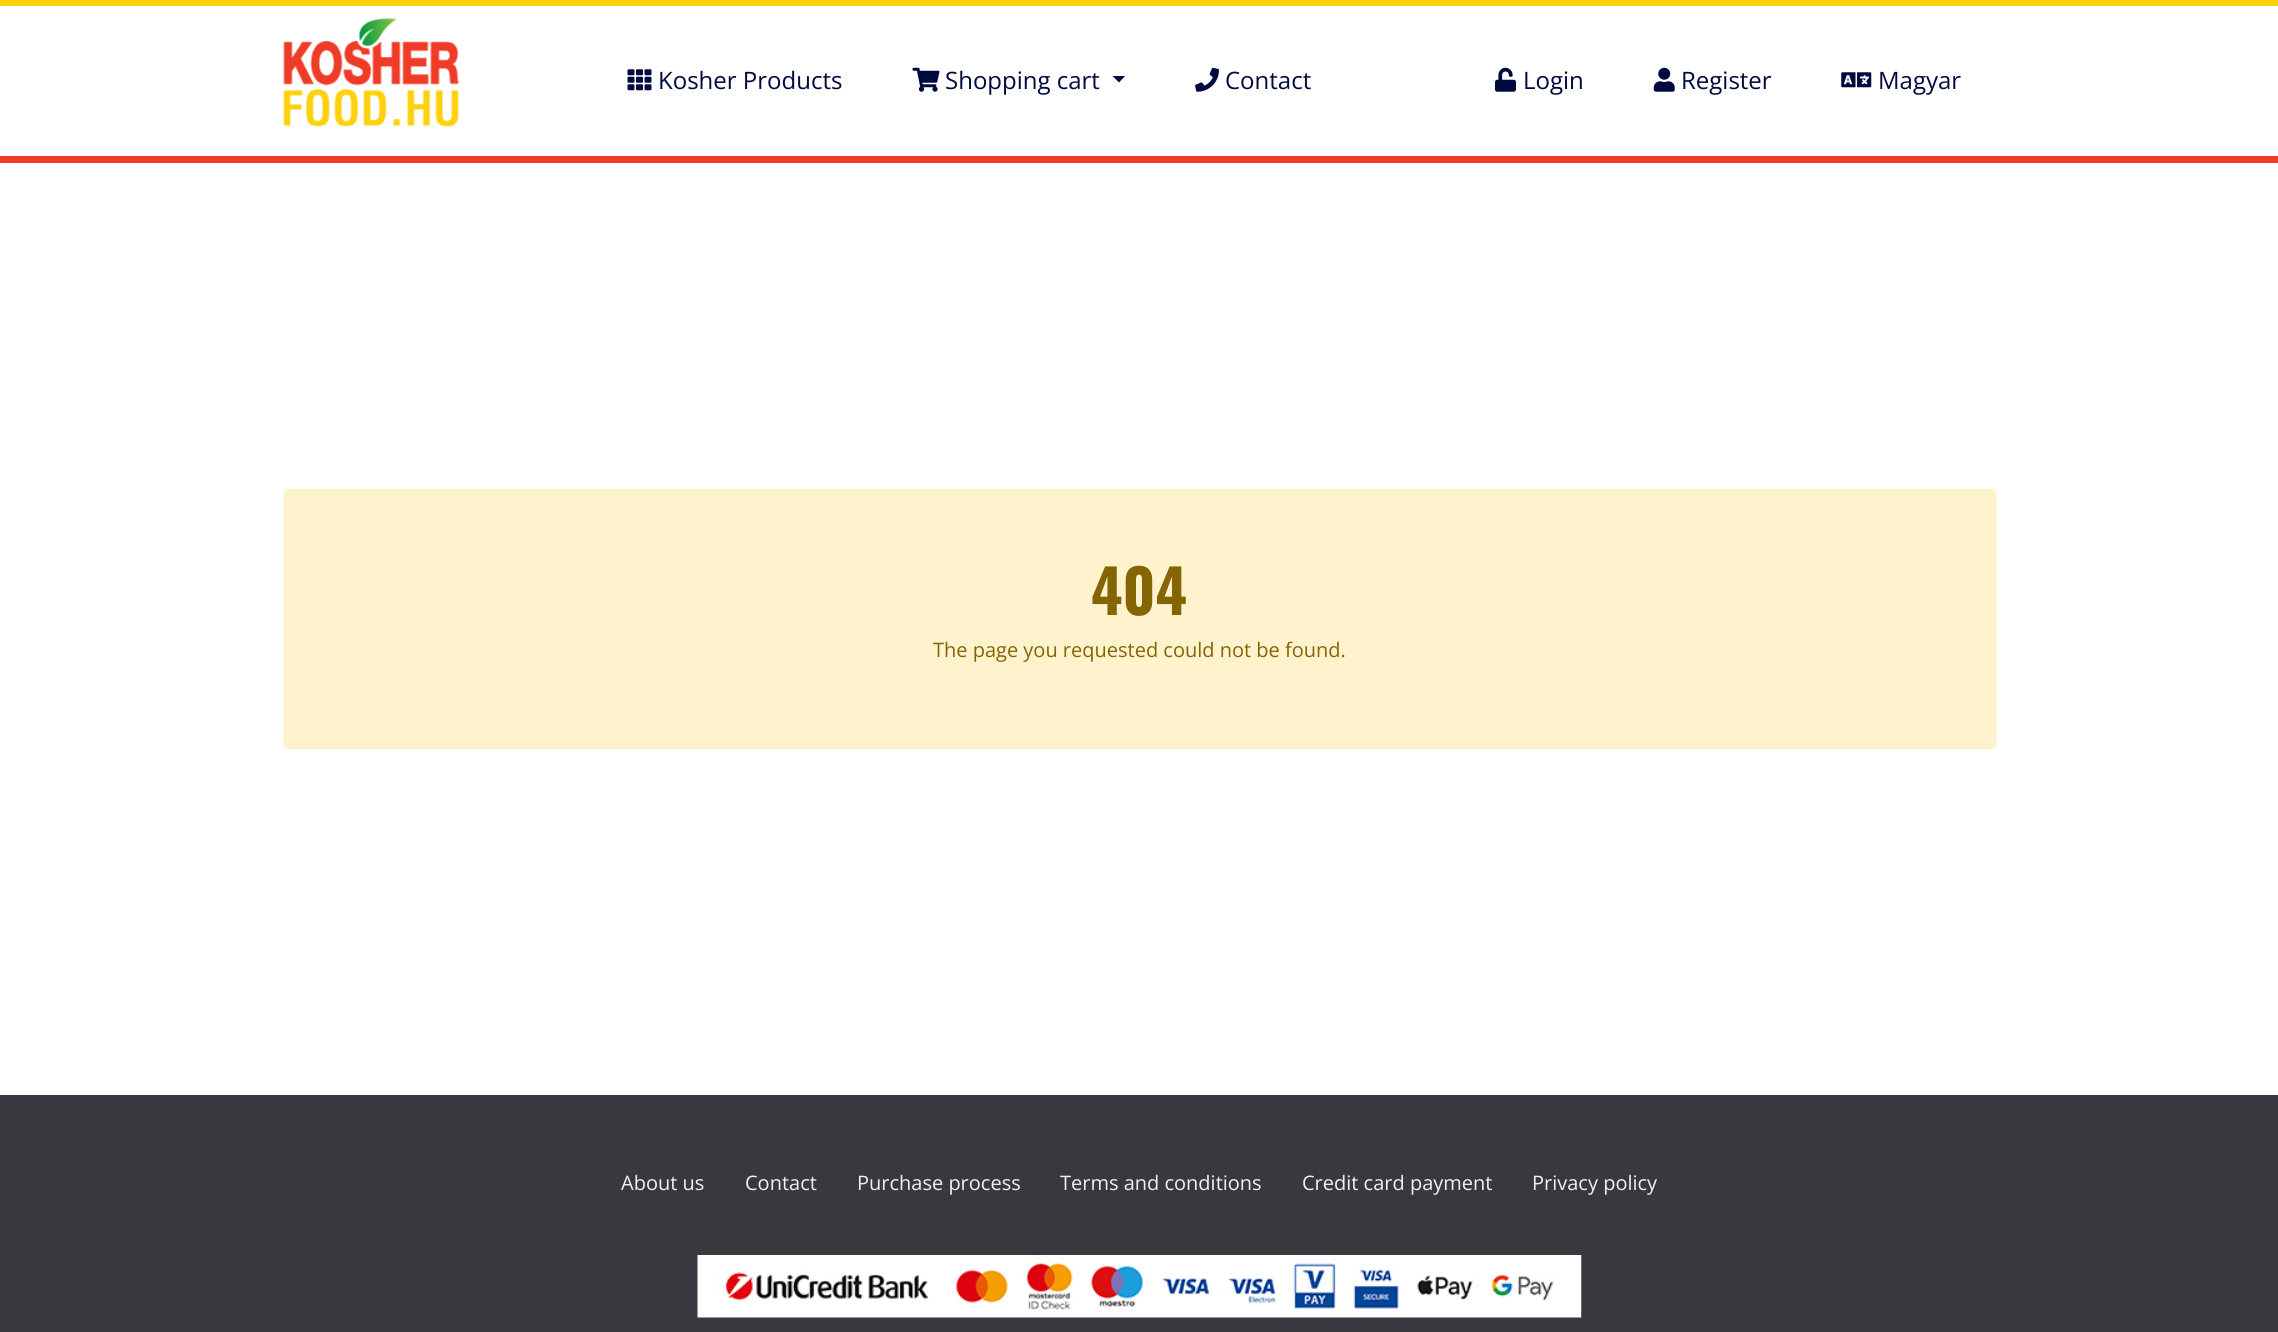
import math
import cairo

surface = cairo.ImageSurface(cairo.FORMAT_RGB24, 2278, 1332)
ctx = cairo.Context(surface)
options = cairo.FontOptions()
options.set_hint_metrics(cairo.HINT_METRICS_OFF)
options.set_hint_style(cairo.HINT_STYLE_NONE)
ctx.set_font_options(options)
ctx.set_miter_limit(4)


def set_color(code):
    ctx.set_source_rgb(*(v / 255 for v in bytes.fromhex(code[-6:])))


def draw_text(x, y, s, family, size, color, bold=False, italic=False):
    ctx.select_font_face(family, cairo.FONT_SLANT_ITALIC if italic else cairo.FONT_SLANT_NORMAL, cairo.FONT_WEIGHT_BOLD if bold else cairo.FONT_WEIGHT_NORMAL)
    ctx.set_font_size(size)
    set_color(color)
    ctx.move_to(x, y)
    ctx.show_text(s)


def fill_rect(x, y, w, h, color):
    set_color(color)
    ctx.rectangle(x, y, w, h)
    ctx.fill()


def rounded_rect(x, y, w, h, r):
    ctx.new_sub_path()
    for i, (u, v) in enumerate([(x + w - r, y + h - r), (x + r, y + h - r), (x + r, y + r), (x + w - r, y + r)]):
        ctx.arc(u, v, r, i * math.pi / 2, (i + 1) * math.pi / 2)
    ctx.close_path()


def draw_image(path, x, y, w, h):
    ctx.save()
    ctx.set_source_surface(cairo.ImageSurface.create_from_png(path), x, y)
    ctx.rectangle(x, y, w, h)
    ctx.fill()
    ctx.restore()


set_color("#ffffff")
ctx.paint()
fill_rect(0, 0, 2278, 6, "#fcd20a")
fill_rect(0, 156, 2278, 7, "#ef3c26")
draw_image("assets/img1.png", 283, 18, 176, 109)
draw_image("assets/img2.png", 627, 69, 25, 22)
draw_text(658, 89, "Kosher Products", "Open Sans", 24, "#010a3f")
draw_image("assets/img3.png", 912, 67, 28, 25)
draw_text(945, 89, "Shopping cart", "Open Sans", 24, "#010a3f")
ctx.new_path()
ctx.move_to(1112.5, 76)
ctx.line_to(1125, 76)
ctx.line_to(1119, 82.5)
ctx.close_path()
ctx.fill()
draw_image("assets/img4.png", 1195, 67, 24, 25)
draw_text(1225, 89, "Contact", "Open Sans", 24, "#010a3f")
draw_image("assets/img5.png", 1495, 67, 21, 25)
draw_text(1523, 89, "Login", "Open Sans", 24, "#010a3f")
draw_image("assets/img6.png", 1653, 67, 22, 25)
draw_text(1681, 89, "Register", "Open Sans", 24, "#010a3f")
draw_image("assets/img7.png", 1841, 72, 31, 16)
draw_text(1878, 89, "Magyar", "Open Sans", 24, "#010a3f")
set_color("#fff3cd")
rounded_rect(284.5, 489.5, 1711, 259, 4.5)
ctx.fill_preserve()
set_color("#ffeeba")
ctx.set_line_width(1)
ctx.stroke()
draw_text(1091, 615, "404", "Oswald", 60, "#856404", bold=True)
draw_text(933, 657, "The page you requested could not be found.", "Open Sans", 20, "#856404")
fill_rect(0, 1095, 2278, 237, "#39383e")
draw_text(621, 1190, "About us", "Open Sans", 20, "#f1f1f1")
draw_text(745, 1190, "Contact", "Open Sans", 20, "#f1f1f1")
draw_text(857, 1190, "Purchase process", "Open Sans", 20, "#f1f1f1")
draw_text(1060, 1190, "Terms and conditions", "Open Sans", 20, "#f1f1f1")
draw_text(1302, 1190, "Credit card payment", "Open Sans", 20, "#f1f1f1")
draw_text(1532, 1190, "Privacy policy", "Open Sans", 20, "#f1f1f1")
draw_image("assets/img8.png", 697, 1255, 885, 63)
surface.write_to_png("output.png")
